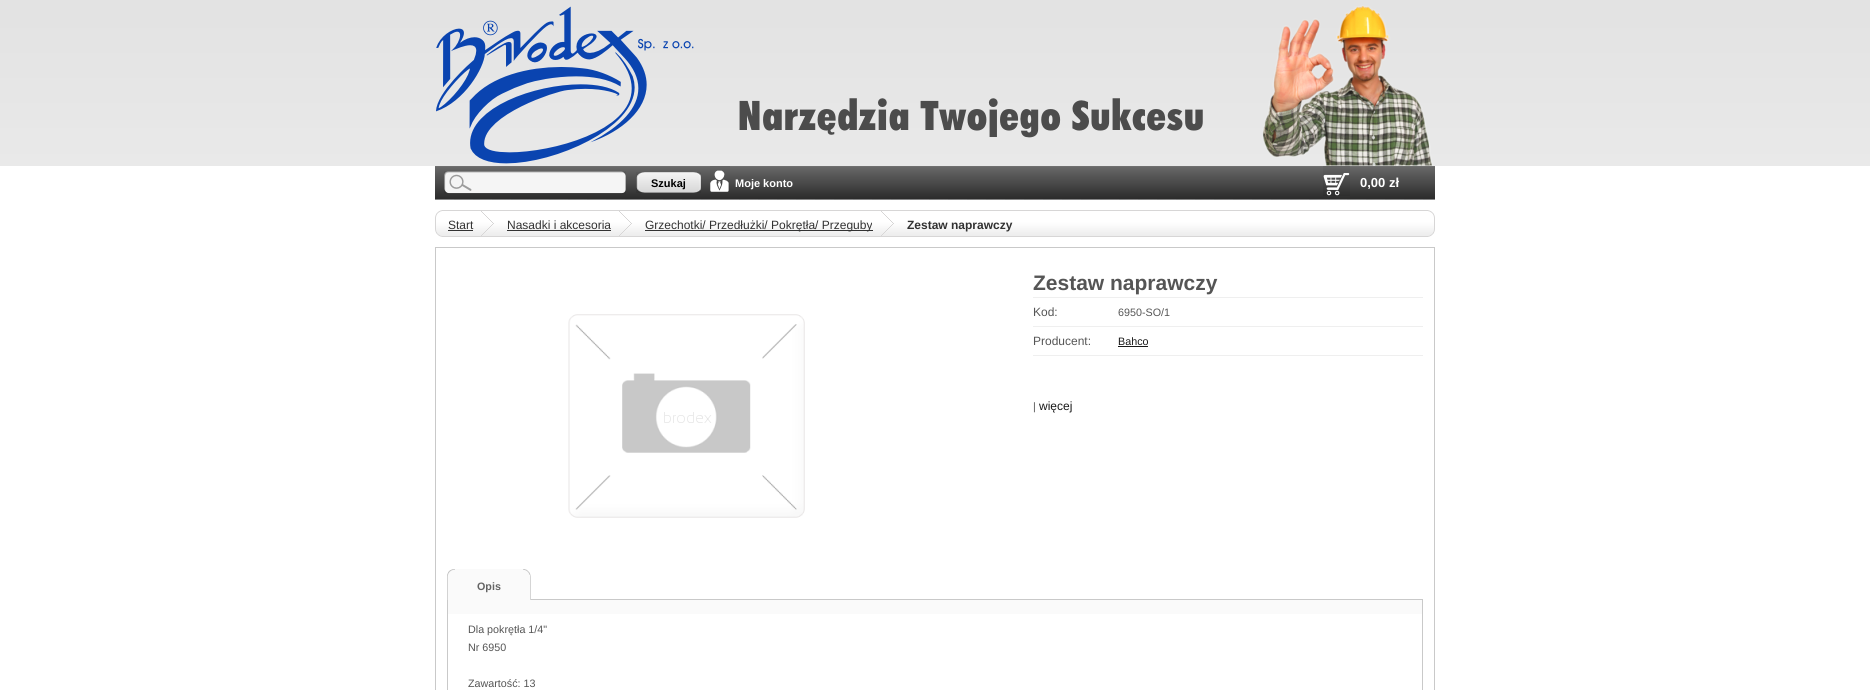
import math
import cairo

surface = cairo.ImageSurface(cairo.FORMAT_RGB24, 1870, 690)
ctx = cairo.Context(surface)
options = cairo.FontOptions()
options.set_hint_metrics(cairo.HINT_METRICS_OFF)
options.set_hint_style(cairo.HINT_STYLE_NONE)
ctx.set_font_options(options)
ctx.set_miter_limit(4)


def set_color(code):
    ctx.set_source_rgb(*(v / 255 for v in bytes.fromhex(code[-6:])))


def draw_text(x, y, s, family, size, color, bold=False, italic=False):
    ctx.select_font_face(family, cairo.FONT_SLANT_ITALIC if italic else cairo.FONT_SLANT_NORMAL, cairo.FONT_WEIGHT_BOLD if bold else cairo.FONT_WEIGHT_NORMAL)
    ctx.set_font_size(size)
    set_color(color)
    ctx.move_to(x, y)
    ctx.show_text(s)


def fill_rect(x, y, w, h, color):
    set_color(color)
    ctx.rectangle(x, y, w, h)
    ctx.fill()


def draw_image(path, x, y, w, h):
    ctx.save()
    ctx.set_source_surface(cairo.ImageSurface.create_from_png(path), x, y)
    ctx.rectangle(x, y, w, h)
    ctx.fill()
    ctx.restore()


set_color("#ffffff")
ctx.paint()
draw_image("assets/img1.png", 0, 0, 1870, 166)
draw_image("assets/img2.png", 435, 0, 1000, 166)
draw_image("assets/img3.png", 435, 6, 259, 160)
draw_image("assets/img4.png", 435, 166, 1000, 34)
draw_image("assets/img5.png", 444, 171, 182, 23)
draw_image("assets/img6.png", 636, 172, 65, 21)
draw_text(651, 187, "Szukaj", "Liberation Sans", 11, "#000000", bold=True)
draw_image("assets/img7.png", 710, 166, 20, 26)
draw_text(735, 187, "Moje konto", "Liberation Sans", 11, "#ffffff", bold=True)
draw_image("assets/img8.png", 1323, 166, 27, 30)
draw_text(1360, 187, "0,00 zł", "Liberation Sans", 13, "#ffffff", bold=True)
draw_image("assets/img9.png", 442, 210, 986, 27)
draw_image("assets/img10.png", 435, 210, 7, 27)
draw_image("assets/img11.png", 1428, 210, 7, 27)
draw_image("assets/img12.png", 481, 211, 13, 25)
draw_text(448, 229, "Start", "Liberation Sans", 12, "#323232")
fill_rect(448, 230, 25, 1, "#323232")
draw_image("assets/img12.png", 619, 211, 13, 25)
draw_text(507, 229, "Nasadki i akcesoria", "Liberation Sans", 12, "#323232")
fill_rect(507, 230, 104, 1, "#323232")
draw_image("assets/img12.png", 881, 211, 13, 25)
fill_rect(645, 230, 228, 1, "#323232")
draw_text(645, 229, "Grzechotki/ Przedłużki/ Pokrętła/ Przeguby", "Liberation Sans", 12, "#323232")
draw_text(907, 229, "Zestaw naprawczy", "Liberation Sans", 12, "#323232", bold=True)
ctx.rectangle(435.5, 247.5, 999, 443)
set_color("#c9c9c9")
ctx.set_line_width(1)
ctx.stroke()
draw_image("assets/img13.png", 568, 314, 237, 204)
fill_rect(1033, 297, 390, 1, "#efefef")
draw_text(1033, 290, "Zestaw naprawczy", "Liberation Sans", 21, "#555555", bold=True)
fill_rect(1033, 326, 390, 1, "#efefef")
draw_text(1033, 316, "Kod:", "Liberation Sans", 12, "#555555")
draw_text(1118, 316, "6950-SO/1", "Liberation Sans", 10.75, "#555555")
fill_rect(1033, 355, 390, 1, "#efefef")
draw_text(1033, 345, "Producent:", "Liberation Sans", 12, "#555555")
draw_text(1118, 345, "Bahco", "Liberation Sans", 10.75, "#191919")
fill_rect(1118, 346, 30, 1, "#191919")
draw_text(1033, 410, "|", "Liberation Sans", 10.75, "#555555")
draw_text(1039, 410, "więcej", "Liberation Sans", 12, "#191919")
fill_rect(448, 600, 974, 14, "#fafafa")
ctx.rectangle(447.5, 599.5, 975, 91)
set_color("#c9c9c9")
ctx.stroke()
fill_rect(455, 569, 68, 31, "#fafafa")
draw_image("assets/img14.png", 447, 569, 8, 31)
draw_image("assets/img15.png", 523, 569, 8, 31)
draw_text(477, 590, "Opis", "Liberation Sans", 10.75, "#646464", bold=True)
draw_text(468, 633, "Dla pokrętła 1/4\"", "Liberation Sans", 10.75, "#555555")
draw_text(468, 651, "Nr 6950", "Liberation Sans", 10.75, "#555555")
draw_text(468, 687, "Zawartość: 13", "Liberation Sans", 10.75, "#555555")
surface.write_to_png("output.png")
